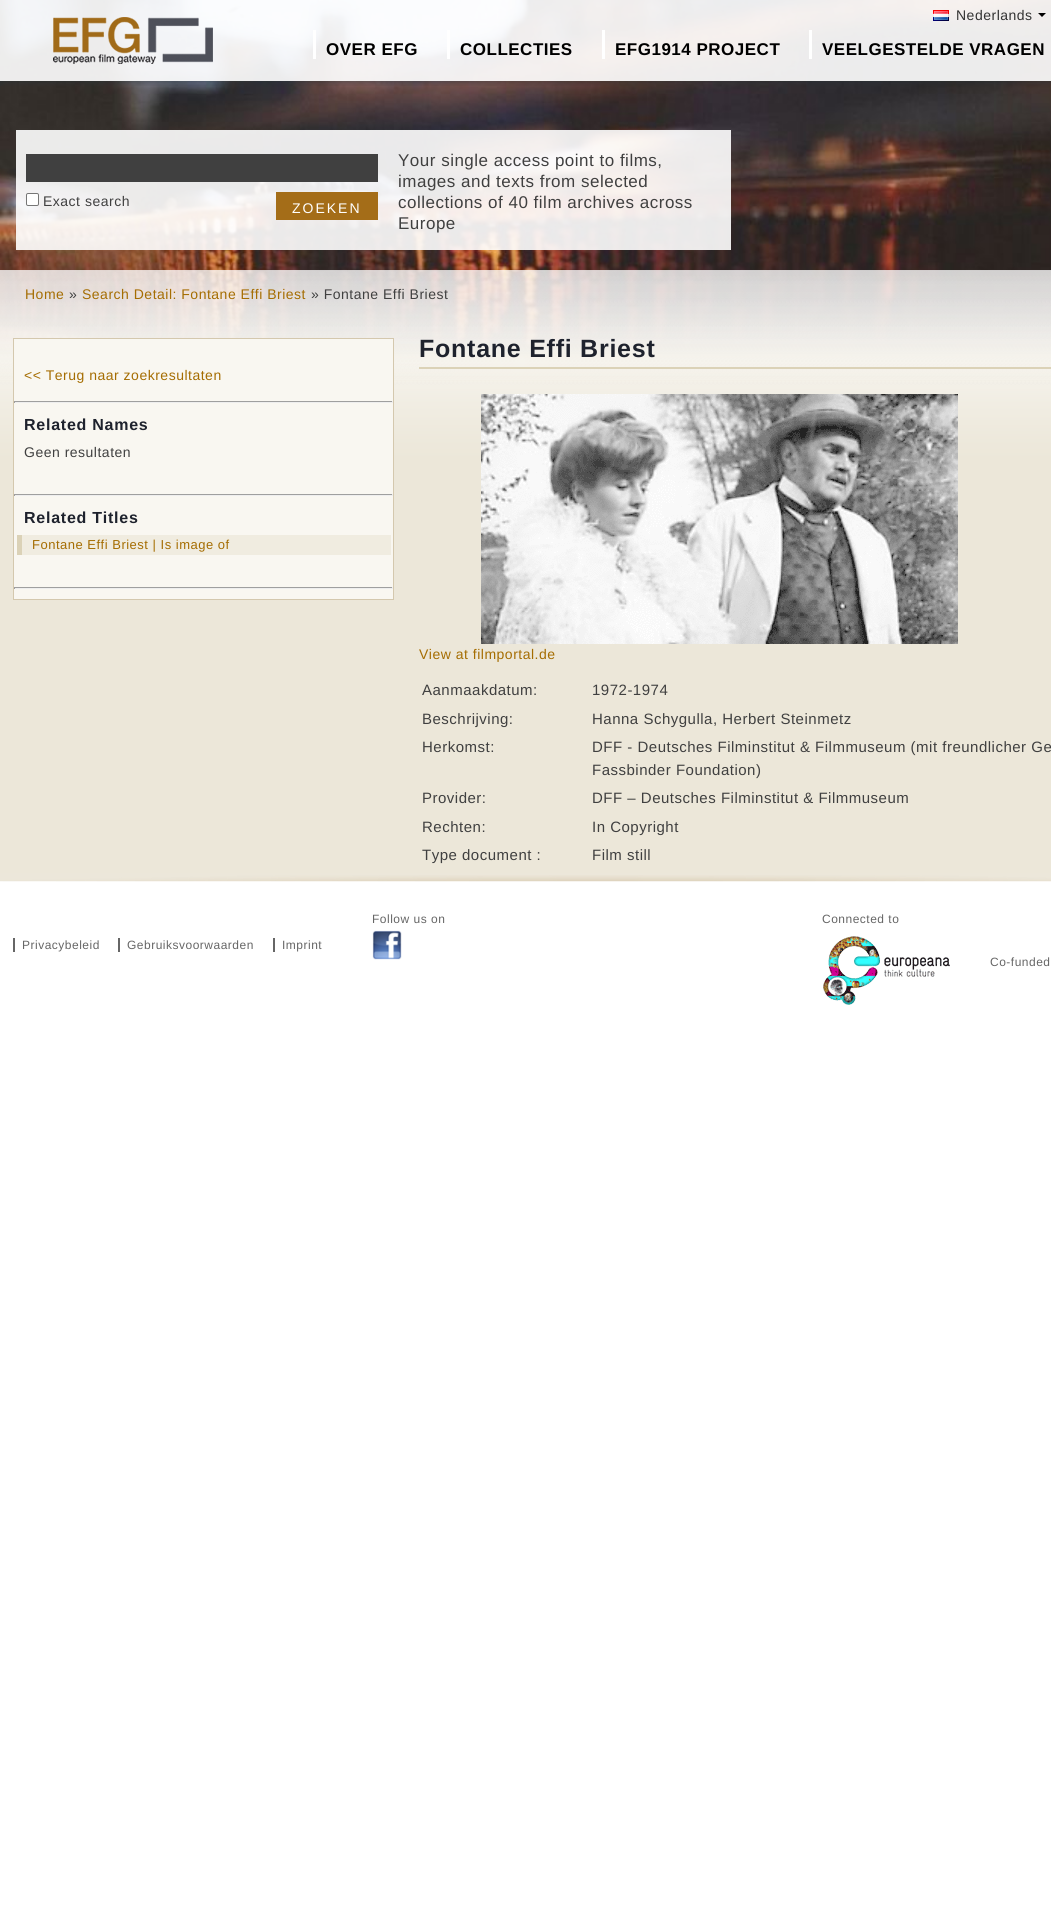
import math
import cairo

surface = cairo.ImageSurface(cairo.FORMAT_RGB24, 1051, 1919)
ctx = cairo.Context(surface)
options = cairo.FontOptions()
options.set_hint_metrics(cairo.HINT_METRICS_OFF)
options.set_hint_style(cairo.HINT_STYLE_NONE)
ctx.set_font_options(options)
ctx.set_miter_limit(4)


def set_color(code):
    ctx.set_source_rgb(*(v / 255 for v in bytes.fromhex(code[-6:])))


def draw_spaced(x, y, s, letter, word):
    ctx.move_to(x, y)
    for ch in s:
        ctx.show_text(ch)
        ctx.rel_move_to(letter + word * (ch == ' '), 0)


def fill_rect(x, y, w, h, color):
    set_color(color)
    ctx.rectangle(x, y, w, h)
    ctx.fill()


def rounded_rect(x, y, w, h, r):
    ctx.new_sub_path()
    for i, (u, v) in enumerate([(x + w - r, y + h - r), (x + r, y + h - r), (x + r, y + r), (x + w - r, y + r)]):
        ctx.arc(u, v, r, i * math.pi / 2, (i + 1) * math.pi / 2)
    ctx.close_path()


def draw_image(path, x, y, w, h):
    ctx.save()
    ctx.set_source_surface(cairo.ImageSurface.create_from_png(path), x, y)
    ctx.rectangle(x, y, w, h)
    ctx.fill()
    ctx.restore()


set_color("#ffffff")
ctx.paint()
draw_image("assets/img1.png", 0, 0, 1051, 385)
draw_image("assets/img2.png", 0, 0, 1051, 86)
draw_image("assets/img3.png", 933, 10, 16, 11)
ctx.select_font_face("Liberation Sans")
ctx.set_font_size(14)
set_color("#333333")
draw_spaced(956, 20, "Nederlands", 0.5, 0)
set_color("#000000")
ctx.new_path()
ctx.move_to(1038, 13)
ctx.line_to(1046, 13)
ctx.line_to(1042, 17)
ctx.close_path()
ctx.fill()
fill_rect(313, 30, 3, 29, "#ffffff")
ctx.select_font_face("Liberation Sans", cairo.FONT_SLANT_NORMAL, cairo.FONT_WEIGHT_BOLD)
ctx.set_font_size(17)
set_color("#000000")
draw_spaced(326, 55, "OVER EFG", 0.5, 0)
fill_rect(447, 30, 3, 29, "#ffffff")
set_color("#000000")
draw_spaced(460, 55, "COLLECTIES", 0.5, 0)
fill_rect(602, 30, 3, 29, "#ffffff")
set_color("#000000")
draw_spaced(615, 55, "EFG1914 PROJECT", 0.5, 0)
fill_rect(809, 30, 3, 29, "#ffffff")
set_color("#000000")
draw_spaced(822, 55, "VEELGESTELDE VRAGEN", 0.5, 0)
ctx.set_source_rgba(1, 1, 1, 0.9)
ctx.rectangle(16, 130, 715, 120)
ctx.fill()
fill_rect(26, 154, 352, 28, "#404040")
set_color("#ffffff")
rounded_rect(26.5, 193.5, 12, 12, 1.5)
ctx.fill_preserve()
set_color("#767676")
ctx.set_line_width(1)
ctx.stroke()
ctx.select_font_face("Liberation Sans")
ctx.set_font_size(14)
set_color("#404040")
draw_spaced(43, 206, "Exact search", 0.5, 0)
fill_rect(276, 192, 102, 28, "#a46d18")
set_color("#ffffff")
draw_spaced(292, 213, "ZOEKEN", 2, 0)
ctx.set_font_size(17)
set_color("#404040")
draw_spaced(398, 166, "Your single access point to films,", 0.5, 0)
draw_spaced(398, 187, "images and texts from selected", 0.5, 0)
draw_spaced(398, 208, "collections of 40 film archives across", 0.5, 0)
draw_spaced(398, 229, "Europe", 0.5, 0)
draw_image("assets/img4.png", 0, 270, 1051, 186)
ctx.set_font_size(14)
set_color("#a56d02")
draw_spaced(25, 299, "Home", 0.5, 0)
set_color("#404040")
draw_spaced(69, 299, "»", 0.5, 0)
set_color("#a56d02")
draw_spaced(82, 299, "Search Detail: Fontane Effi Briest", 0.5, 0)
set_color("#404040")
draw_spaced(311, 299, "» Fontane Effi Briest", 0.5, 0)
fill_rect(0, 456, 1051, 417, "#ece7d9")
set_color("#f9f7f1")
ctx.rectangle(13.5, 338.5, 380, 261)
ctx.fill_preserve()
set_color("#d4c8ae")
ctx.stroke()
set_color("#a56d02")
draw_spaced(24, 380, "<< Terug naar zoekresultaten", 0.5, 0)
fill_rect(14, 401, 379, 1, "#9f9f9f")
fill_rect(392, 401, 1, 2, "#eeeeee")
fill_rect(14, 402, 379, 1, "#eeeeee")
fill_rect(14, 401, 1, 2, "#9f9f9f")
ctx.select_font_face("Liberation Sans", cairo.FONT_SLANT_NORMAL, cairo.FONT_WEIGHT_BOLD)
ctx.set_font_size(16)
set_color("#1e222d")
draw_spaced(24, 430, "Related Names", 0.75, 0)
ctx.select_font_face("Liberation Sans")
ctx.set_font_size(14)
set_color("#404040")
draw_spaced(24, 457, "Geen resultaten", 0.5, 0)
fill_rect(14, 494, 379, 1, "#9f9f9f")
fill_rect(392, 494, 1, 2, "#eeeeee")
fill_rect(14, 495, 379, 1, "#eeeeee")
fill_rect(14, 494, 1, 2, "#9f9f9f")
ctx.select_font_face("Liberation Sans", cairo.FONT_SLANT_NORMAL, cairo.FONT_WEIGHT_BOLD)
ctx.set_font_size(16)
set_color("#1e222d")
draw_spaced(24, 523, "Related Titles", 0.75, 0)
fill_rect(22, 535, 369, 20, "#f0ece0")
fill_rect(17, 535, 5, 20, "#dbd2b7")
ctx.select_font_face("Liberation Sans")
ctx.set_font_size(13)
set_color("#a56d02")
draw_spaced(32, 549, "Fontane Effi Briest | Is image of", 0.5, 0)
fill_rect(14, 587, 379, 1, "#9f9f9f")
fill_rect(392, 587, 1, 2, "#eeeeee")
fill_rect(14, 588, 379, 1, "#eeeeee")
fill_rect(14, 587, 1, 2, "#9f9f9f")
fill_rect(419, 367, 632, 2, "#dbd2b7")
ctx.select_font_face("Liberation Sans", cairo.FONT_SLANT_NORMAL, cairo.FONT_WEIGHT_BOLD)
ctx.set_font_size(25)
set_color("#1e222d")
draw_spaced(419, 357, "Fontane Effi Briest", 0.75, 0)
draw_image("assets/img5.png", 481, 394, 477, 250)
ctx.select_font_face("Liberation Sans")
ctx.set_font_size(14)
set_color("#a56d02")
draw_spaced(419, 659, "View at filmportal.de", 0.5, 0)
ctx.set_font_size(15)
set_color("#404040")
draw_spaced(422, 695, "Aanmaakdatum:", 0.5, 0)
draw_spaced(592, 695, "1972-1974", 0.5, 0)
draw_spaced(422, 724, "Beschrijving:", 0.5, 0)
draw_spaced(592, 724, "Hanna Schygulla, Herbert Steinmetz", 0.5, 0)
draw_spaced(422, 752, "Herkomst:", 0.5, 0)
draw_spaced(592, 752, "DFF - Deutsches Filminstitut & Filmmuseum (mit freundlicher Ge", 0.5, 0)
draw_spaced(592, 775, "Fassbinder Foundation)", 0.5, 0)
draw_spaced(422, 803, "Provider:", 0.5, 0)
draw_spaced(592, 803, "DFF – Deutsches Filminstitut & Filmmuseum", 0.5, 0)
draw_spaced(422, 832, "Rechten:", 0.5, 0)
draw_spaced(592, 832, "In Copyright", 0.5, 0)
draw_spaced(422, 860, "Type document :", 0.5, 0)
draw_spaced(592, 860, "Film still", 0.5, 0)
fill_rect(0, 873, 1051, 9, "#ece7da")
draw_image("assets/img6.png", 0, 875, 1051, 50)
ctx.set_font_size(12)
set_color("#666666")
draw_spaced(22, 949, "Privacybeleid", 0.5, 0)
fill_rect(13, 938, 2, 14, "#666666")
draw_spaced(127, 949, "Gebruiksvoorwaarden", 0.5, 0)
fill_rect(118, 938, 2, 14, "#666666")
draw_spaced(282, 949, "Imprint", 0.5, 0)
fill_rect(273, 938, 2, 14, "#666666")
draw_spaced(372, 923, "Follow us on", 0.5, 0)
draw_image("assets/img7.png", 372, 930, 30, 30)
draw_spaced(822, 923, "Connected to", 0.5, 0)
draw_image("assets/img8.png", 823, 936, 127, 69)
draw_spaced(990, 966, "Co-funded", 0.5, 0)
surface.write_to_png("output.png")
